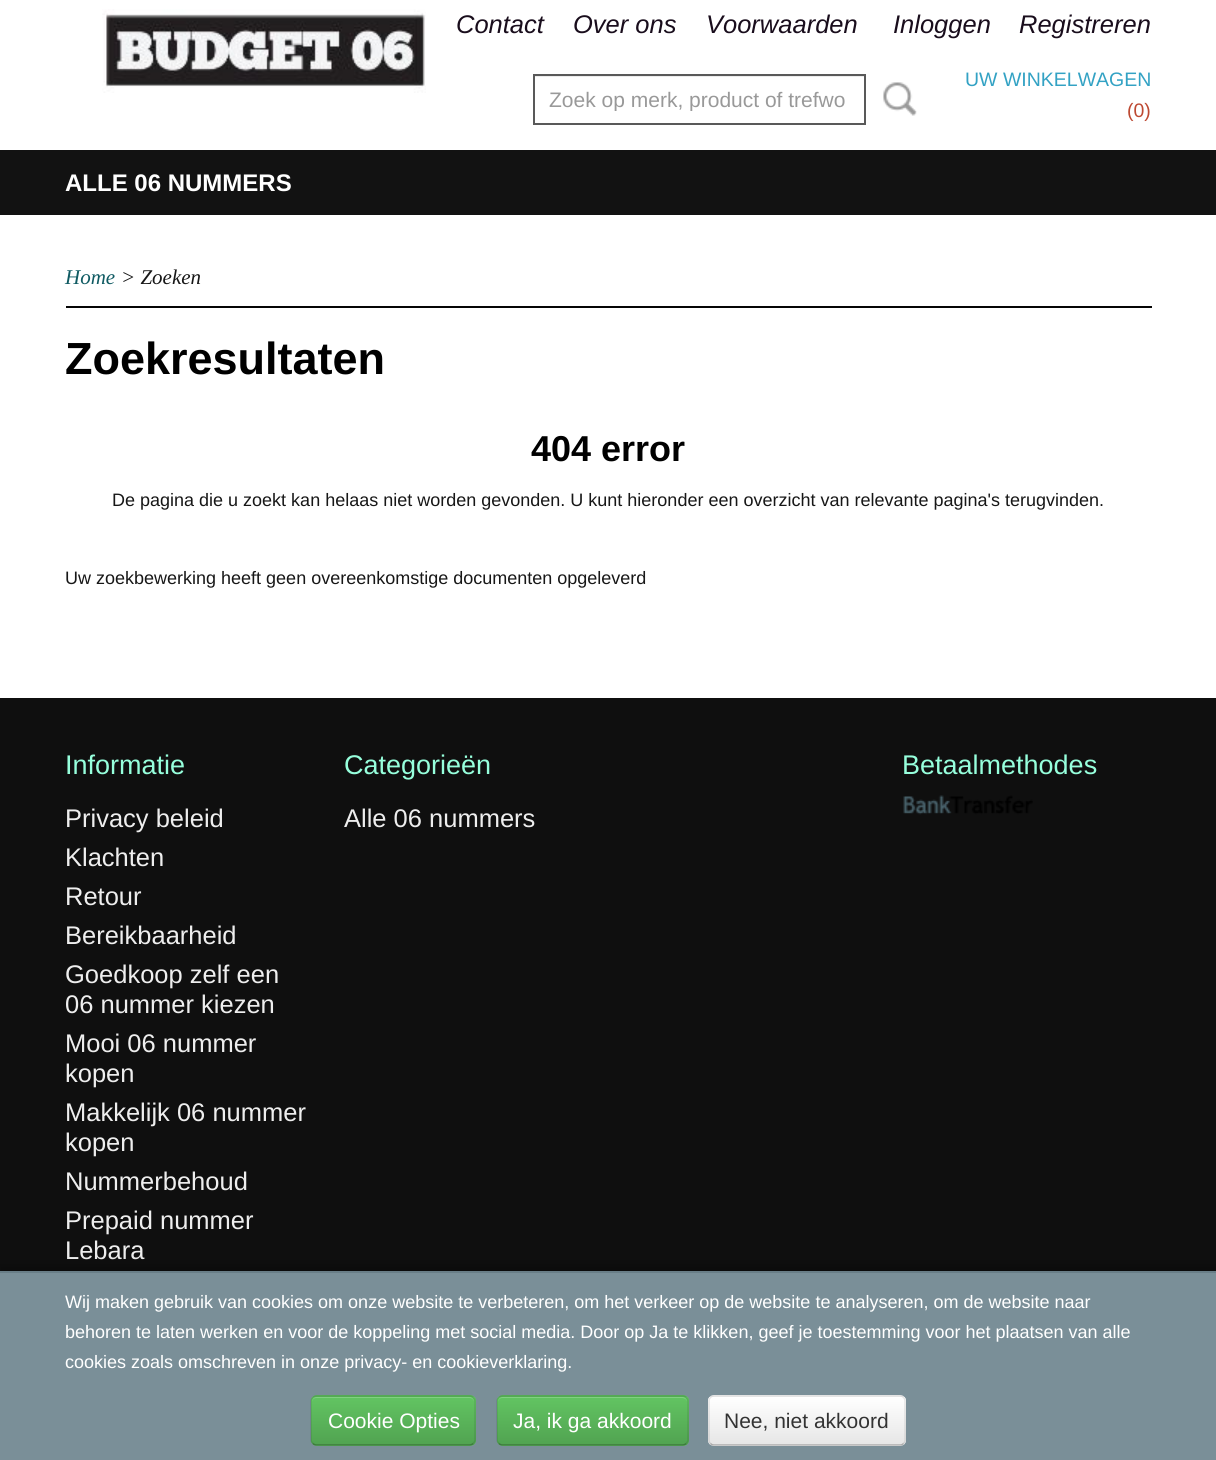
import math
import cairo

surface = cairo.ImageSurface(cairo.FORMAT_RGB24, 1216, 1460)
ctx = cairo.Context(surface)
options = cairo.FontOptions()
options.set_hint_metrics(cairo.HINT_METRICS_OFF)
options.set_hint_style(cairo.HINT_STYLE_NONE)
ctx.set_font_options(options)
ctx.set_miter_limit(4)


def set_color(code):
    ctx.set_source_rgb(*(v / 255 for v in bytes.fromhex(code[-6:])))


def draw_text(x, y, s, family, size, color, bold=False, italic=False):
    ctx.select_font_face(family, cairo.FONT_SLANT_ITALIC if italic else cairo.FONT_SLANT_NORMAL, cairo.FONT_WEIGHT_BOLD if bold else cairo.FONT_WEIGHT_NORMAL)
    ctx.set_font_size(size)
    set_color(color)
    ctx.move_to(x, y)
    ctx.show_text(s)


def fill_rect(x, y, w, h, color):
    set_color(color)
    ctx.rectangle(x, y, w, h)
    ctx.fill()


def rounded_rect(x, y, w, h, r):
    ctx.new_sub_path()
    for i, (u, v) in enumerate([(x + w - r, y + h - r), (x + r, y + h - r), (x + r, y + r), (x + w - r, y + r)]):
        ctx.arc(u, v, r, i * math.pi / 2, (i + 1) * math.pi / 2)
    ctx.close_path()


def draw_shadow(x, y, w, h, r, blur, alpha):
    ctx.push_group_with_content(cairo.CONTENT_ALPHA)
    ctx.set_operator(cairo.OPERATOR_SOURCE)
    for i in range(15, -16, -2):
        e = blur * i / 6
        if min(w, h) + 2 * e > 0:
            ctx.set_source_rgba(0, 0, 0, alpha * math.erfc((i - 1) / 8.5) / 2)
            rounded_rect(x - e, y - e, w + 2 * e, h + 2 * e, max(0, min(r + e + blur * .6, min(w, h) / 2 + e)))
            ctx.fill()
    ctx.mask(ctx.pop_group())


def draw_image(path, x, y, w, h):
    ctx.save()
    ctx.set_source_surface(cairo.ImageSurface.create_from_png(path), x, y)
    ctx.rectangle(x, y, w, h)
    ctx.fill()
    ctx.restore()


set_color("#ffffff")
ctx.paint()
draw_image("assets/img1.png", 102, 9, 324, 84)
draw_text(456, 33, "Contact", "Liberation Sans", 25.5, "#190d1c", italic=True)
draw_text(573, 33, "Over ons", "Liberation Sans", 25.5, "#190d1c", italic=True)
draw_text(706, 33, "Voorwaarden", "Liberation Sans", 25.5, "#190d1c", italic=True)
draw_text(893, 33, "Inloggen", "Liberation Sans", 25.5, "#190d1c", italic=True)
draw_text(1019, 33, "Registreren", "Liberation Sans", 25.5, "#190d1c", italic=True)
draw_text(965, 86, "UW WINKELWAGEN", "Liberation Sans", 19.5, "#33a2c4")
draw_text(1127, 117, "(0)", "Liberation Sans", 19.5, "#bd4932")
fill_rect(534, 76, 330, 1, "#ececec")
ctx.rectangle(534, 75, 331, 49)
set_color("#595959")
ctx.stroke()
ctx.save()
ctx.rectangle(549, 87, 300, 24)
ctx.clip()
draw_text(549, 107, "Zoek op merk, product of trefwo", "Liberation Sans", 21, "#999999")
ctx.restore()
draw_image("assets/img2.png", 883, 82, 34, 34)
fill_rect(0, 150, 1216, 65, "#121212")
draw_text(65, 191, "ALLE 06 NUMMERS", "Liberation Sans", 24, "#ffffff", bold=True)
fill_rect(66, 306, 1086, 2, "#050505")
draw_text(65, 284, "Home", "Liberation Serif", 21, "#105b63", italic=True)
draw_text(121, 284, "> Zoeken", "Liberation Serif", 21, "#171717", italic=True)
draw_text(65, 374, "Zoekresultaten", "Liberation Sans", 45, "#000000", bold=True)
draw_text(531, 461, "404 error", "Liberation Sans", 36, "#000000", bold=True)
draw_text(112, 506, "De pagina die u zoekt kan helaas niet worden gevonden. U kunt hieronder een overzicht van relevante pagina's terugvinden.", "Liberation Sans", 18, "#171717")
draw_text(65, 584, "Uw zoekbewerking heeft geen overeenkomstige documenten opgeleverd", "Liberation Sans", 18, "#171717")
fill_rect(0, 698, 1216, 573, "#0f0f0f")
draw_text(65, 774, "Informatie", "Liberation Sans", 27, "#96ffdc")
draw_text(65, 827, "Privacy beleid", "Liberation Sans", 25.5, "#eeeeee")
draw_text(65, 866, "Klachten", "Liberation Sans", 25.5, "#eeeeee")
draw_text(65, 905, "Retour", "Liberation Sans", 25.5, "#eeeeee")
draw_text(65, 944, "Bereikbaarheid", "Liberation Sans", 25.5, "#eeeeee")
draw_text(65, 983, "Goedkoop zelf een", "Liberation Sans", 25.5, "#eeeeee")
draw_text(65, 1013, "06 nummer kiezen", "Liberation Sans", 25.5, "#eeeeee")
draw_text(65, 1052, "Mooi 06 nummer", "Liberation Sans", 25.5, "#eeeeee")
draw_text(65, 1082, "kopen", "Liberation Sans", 25.5, "#eeeeee")
draw_text(65, 1121, "Makkelijk 06 nummer", "Liberation Sans", 25.5, "#eeeeee")
draw_text(65, 1151, "kopen", "Liberation Sans", 25.5, "#eeeeee")
draw_text(65, 1190, "Nummerbehoud", "Liberation Sans", 25.5, "#eeeeee")
draw_text(65, 1229, "Prepaid nummer", "Liberation Sans", 25.5, "#eeeeee")
draw_text(65, 1259, "Lebara", "Liberation Sans", 25.5, "#eeeeee")
draw_text(344, 774, "Categorieën", "Liberation Sans", 27, "#96ffdc")
draw_text(344, 827, "Alle 06 nummers", "Liberation Sans", 25.5, "#eeeeee")
draw_text(902, 774, "Betaalmethodes", "Liberation Sans", 27, "#96ffdc")
draw_image("assets/img3.png", 903, 795, 130, 20)
set_color("#000000")
draw_shadow(0, 1266, 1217, 191, 0, 5, 0.3)
fill_rect(0, 1273, 1216, 187, "#7a8f98")
fill_rect(0, 1271, 1216, 2, "#697e87")
draw_text(65, 1308, "Wij maken gebruik van cookies om onze website te verbeteren, om het verkeer op de website te analyseren, om de website naar", "Liberation Sans", 18, "#ffffff")
draw_text(65, 1338, "behoren te laten werken en voor de koppeling met social media. Door op Ja te klikken, geef je toestemming voor het plaatsen van alle", "Liberation Sans", 18, "#ffffff")
draw_text(65, 1368, "cookies zoals omschreven in onze privacy- en cookieverklaring.", "Liberation Sans", 18, "#ffffff")
set_color("#5bb75b")
rounded_rect(311, 1395, 165, 51, 6)
ctx.fill()
ctx.save()
rounded_rect(311, 1395, 165, 51, 6)
ctx.clip()
gradient = cairo.LinearGradient(393, 1397, 393, 1445)
gradient.add_color_stop_rgba(0, 0.384, 0.769, 0.384, 1)
gradient.add_color_stop_rgba(1, 0.318, 0.639, 0.318, 1)
ctx.set_source(gradient)
ctx.rectangle(311, 1397, 165, 48)
ctx.fill()
ctx.restore()
set_color("#81d081")
ctx.new_path()
ctx.move_to(316, 1398)
ctx.line_to(470, 1398)
ctx.curve_to(472, 1398, 474, 1400, 474, 1402)
ctx.curve_to(474, 1399, 472, 1397, 469, 1397)
ctx.line_to(317, 1397)
ctx.curve_to(314, 1397, 312, 1399, 312, 1402)
ctx.curve_to(312, 1400, 314, 1398, 316, 1398)
ctx.close_path()
ctx.fill()
ctx.new_path()
ctx.move_to(473, 1443.5)
ctx.curve_to(472, 1444.5, 471, 1445, 469.5, 1445)
ctx.line_to(316.5, 1445)
ctx.curve_to(315, 1445, 314, 1444.5, 313, 1443.5)
ctx.set_source_rgba(0, 0, 0, 0.25)
ctx.set_line_width(1.5)
ctx.stroke()
ctx.new_path()
ctx.move_to(313, 1443.5)
ctx.curve_to(312, 1442.5, 311, 1441.5, 311, 1440)
ctx.line_to(311, 1401)
ctx.curve_to(311, 1399.5, 312, 1398.5, 313, 1397.5)
ctx.curve_to(314, 1396.5, 315, 1396, 316.5, 1396)
ctx.line_to(469.5, 1396)
ctx.curve_to(471, 1396, 472, 1396.5, 473, 1397.5)
ctx.curve_to(474, 1398.5, 475, 1399.5, 475, 1401)
ctx.line_to(475, 1440)
ctx.curve_to(475, 1441.5, 474, 1442.5, 473, 1443.5)
ctx.set_source_rgba(0, 0, 0, 0.1)
ctx.stroke()
draw_text(328, 1428, "Cookie Opties", "Liberation Sans", 21, "#ffffff")
set_color("#5bb75b")
rounded_rect(497, 1395, 192, 51, 6)
ctx.fill()
ctx.save()
rounded_rect(497, 1395, 192, 51, 6)
ctx.clip()
gradient = cairo.LinearGradient(593, 1397, 593, 1445)
gradient.add_color_stop_rgba(0, 0.384, 0.769, 0.384, 1)
gradient.add_color_stop_rgba(1, 0.318, 0.639, 0.318, 1)
ctx.set_source(gradient)
ctx.rectangle(497, 1397, 192, 48)
ctx.fill()
ctx.restore()
set_color("#81d081")
ctx.new_path()
ctx.move_to(502, 1398)
ctx.line_to(682, 1398)
ctx.curve_to(685, 1398, 687, 1400, 687, 1402)
ctx.curve_to(687, 1399, 685, 1397, 682, 1397)
ctx.line_to(503, 1397)
ctx.curve_to(500, 1397, 498, 1399, 498, 1402)
ctx.curve_to(498, 1400, 500, 1398, 502, 1398)
ctx.close_path()
ctx.fill()
ctx.new_path()
ctx.move_to(686, 1443.5)
ctx.curve_to(685, 1444.5, 684, 1445, 682.5, 1445)
ctx.line_to(502.5, 1445)
ctx.curve_to(501, 1445, 500, 1444.5, 499, 1443.5)
ctx.set_source_rgba(0, 0, 0, 0.25)
ctx.stroke()
ctx.new_path()
ctx.move_to(499, 1443.5)
ctx.curve_to(498, 1442.5, 497, 1441.5, 497, 1440)
ctx.line_to(497, 1401)
ctx.curve_to(497, 1399.5, 498, 1398.5, 499, 1397.5)
ctx.curve_to(500, 1396.5, 501, 1396, 502.5, 1396)
ctx.line_to(682.5, 1396)
ctx.curve_to(684, 1396, 685, 1396.5, 686, 1397.5)
ctx.curve_to(687, 1398.5, 688, 1399.5, 688, 1401)
ctx.line_to(688, 1440)
ctx.curve_to(688, 1441.5, 687, 1442.5, 686, 1443.5)
ctx.set_source_rgba(0, 0, 0, 0.1)
ctx.stroke()
draw_text(513, 1428, "Ja, ik ga akkoord", "Liberation Sans", 21, "#ffffff")
set_color("#f5f5f5")
rounded_rect(708, 1395, 198, 51, 6)
ctx.fill()
ctx.save()
rounded_rect(708, 1395, 198, 51, 6)
ctx.clip()
gradient = cairo.LinearGradient(807, 1397, 807, 1445)
gradient.add_color_stop_rgba(0, 1, 1, 1, 1)
gradient.add_color_stop_rgba(1, 0.902, 0.902, 0.902, 1)
ctx.set_source(gradient)
ctx.rectangle(708, 1397, 198, 48)
ctx.fill()
ctx.restore()
ctx.set_source_rgba(1, 1, 1, 0.2)
ctx.new_path()
ctx.move_to(714, 1398)
ctx.line_to(900, 1398)
ctx.curve_to(902, 1398, 904, 1400, 904, 1402)
ctx.line_to(904, 1443)
ctx.curve_to(905, 1442, 905, 1441, 905, 1440)
ctx.line_to(905, 1402)
ctx.curve_to(905, 1399, 903, 1397, 900, 1397)
ctx.line_to(715, 1397)
ctx.curve_to(712, 1397, 710, 1399, 710, 1402)
ctx.curve_to(710, 1400, 712, 1398, 714, 1398)
ctx.close_path()
ctx.fill()
ctx.new_path()
ctx.move_to(903.5, 1443.5)
ctx.curve_to(902.5, 1444.5, 901.5, 1445, 900, 1445)
ctx.line_to(714, 1445)
ctx.curve_to(712.5, 1445, 711.5, 1444.5, 710.5, 1443.5)
ctx.set_source_rgba(0, 0, 0, 0.25)
ctx.stroke()
ctx.new_path()
ctx.move_to(710.5, 1443.5)
ctx.curve_to(709.5, 1442.5, 709, 1441.5, 709, 1440)
ctx.line_to(709, 1401)
ctx.curve_to(709, 1399.5, 709.5, 1398.5, 710.5, 1397.5)
ctx.curve_to(711.5, 1396.5, 712.5, 1396, 714, 1396)
ctx.line_to(900, 1396)
ctx.curve_to(901.5, 1396, 902.5, 1396.5, 903.5, 1397.5)
ctx.curve_to(904.5, 1398.5, 905, 1399.5, 905, 1401)
ctx.line_to(905, 1440)
ctx.curve_to(905, 1441.5, 904.5, 1442.5, 903.5, 1443.5)
ctx.set_source_rgba(0, 0, 0, 0.1)
ctx.stroke()
draw_text(724, 1428, "Nee, niet akkoord", "Liberation Sans", 21, "#333333")
surface.write_to_png("output.png")
